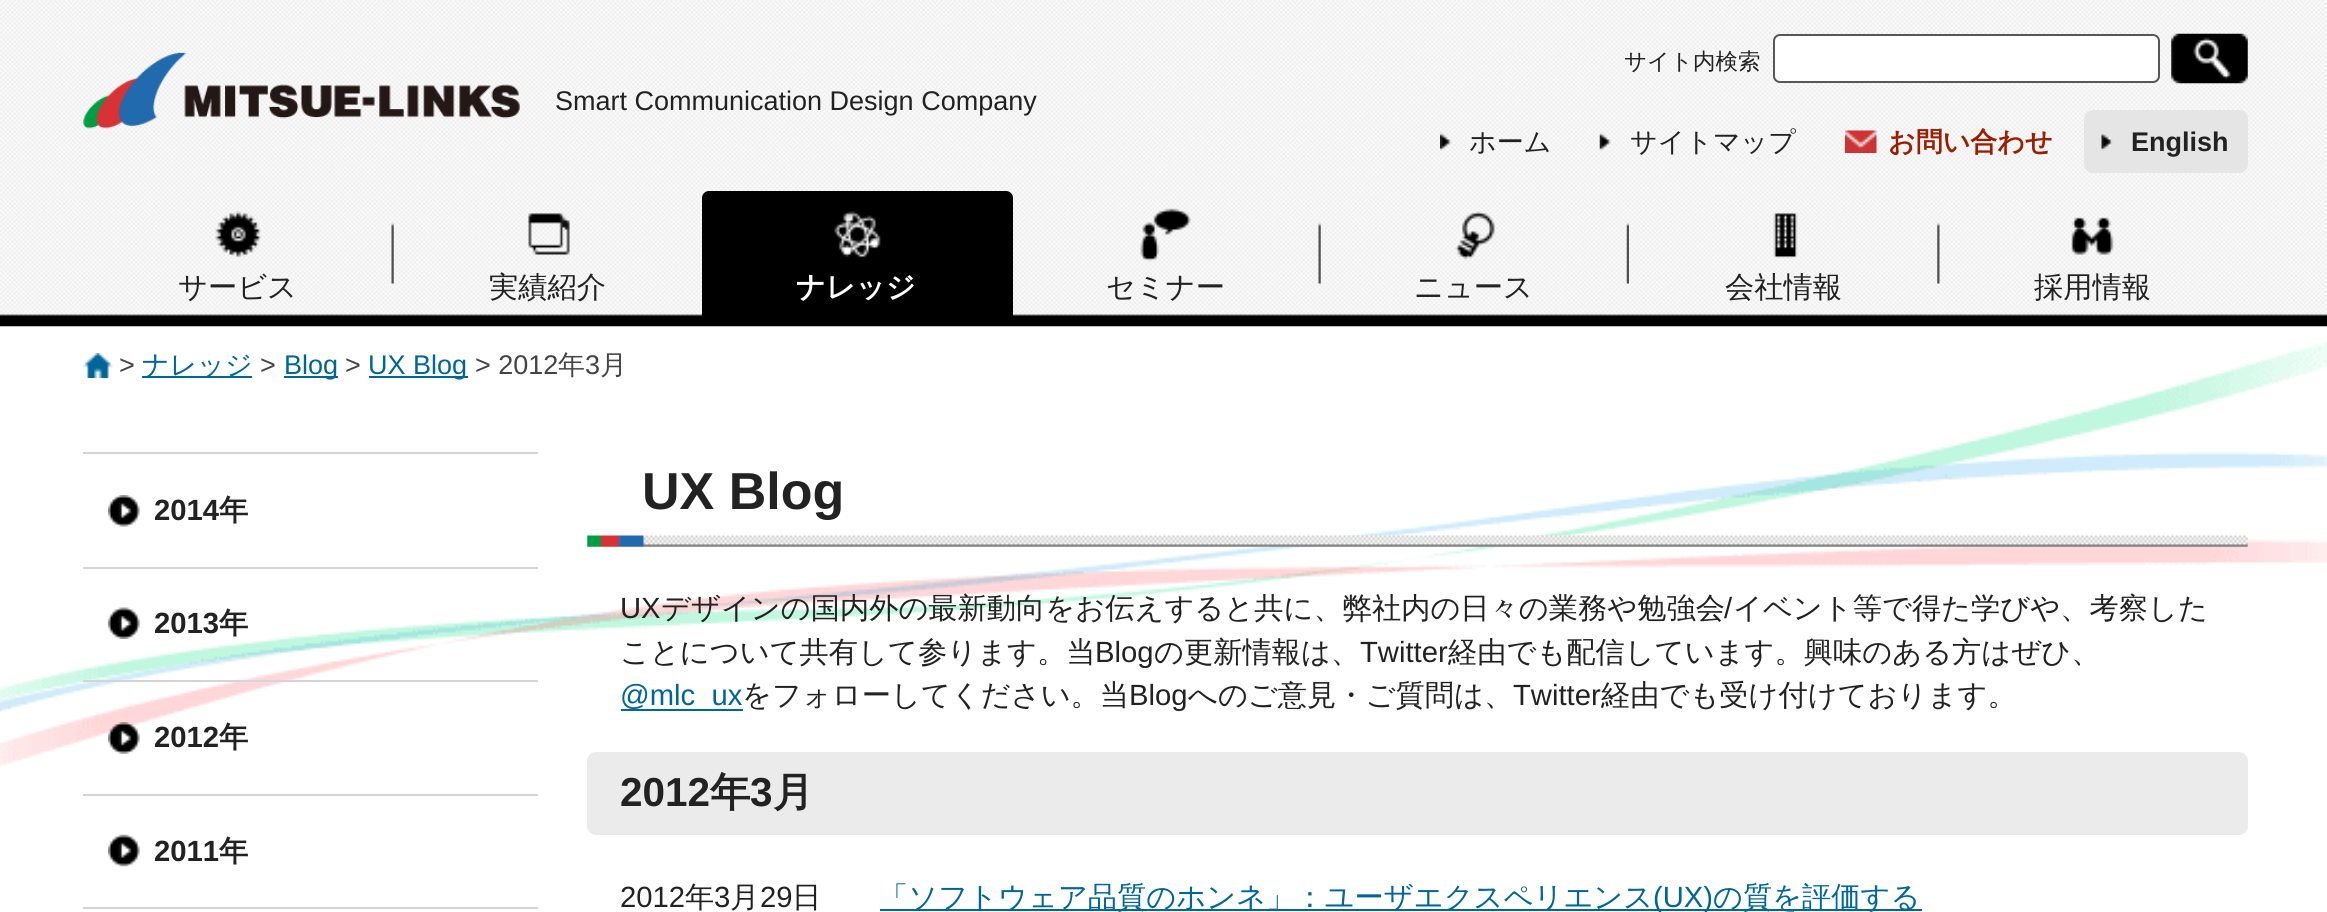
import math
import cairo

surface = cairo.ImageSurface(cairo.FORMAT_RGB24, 2327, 912)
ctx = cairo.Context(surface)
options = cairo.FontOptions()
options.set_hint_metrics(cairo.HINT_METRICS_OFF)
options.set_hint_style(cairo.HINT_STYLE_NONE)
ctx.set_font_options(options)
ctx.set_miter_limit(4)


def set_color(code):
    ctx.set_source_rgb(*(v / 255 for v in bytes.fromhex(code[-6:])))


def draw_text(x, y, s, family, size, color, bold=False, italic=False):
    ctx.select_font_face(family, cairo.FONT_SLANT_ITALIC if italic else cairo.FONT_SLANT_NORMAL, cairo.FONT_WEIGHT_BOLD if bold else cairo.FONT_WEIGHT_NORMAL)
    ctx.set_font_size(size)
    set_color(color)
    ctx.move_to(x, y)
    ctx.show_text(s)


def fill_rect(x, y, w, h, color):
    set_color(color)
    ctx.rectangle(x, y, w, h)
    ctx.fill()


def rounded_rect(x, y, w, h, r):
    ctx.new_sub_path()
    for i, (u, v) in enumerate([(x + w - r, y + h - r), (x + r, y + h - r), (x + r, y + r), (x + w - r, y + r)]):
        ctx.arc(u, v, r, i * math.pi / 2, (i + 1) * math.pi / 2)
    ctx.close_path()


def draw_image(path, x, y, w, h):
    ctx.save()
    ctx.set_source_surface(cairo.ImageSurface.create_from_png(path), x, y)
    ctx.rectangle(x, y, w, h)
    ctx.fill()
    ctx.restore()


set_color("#ffffff")
ctx.paint()
draw_image("assets/img1.png", 0, 341, 2327, 426)
draw_image("assets/img2.png", 0, 0, 2327, 327)
draw_image("assets/img3.png", 83, 52, 437, 77)
draw_text(555, 110, "Smart Communication Design Company", "Liberation Sans", 27, "#222222")
draw_text(1624, 69, "サイト内検索", "WenQuanYi Zen Hei Medium", 22.5, "#222222")
set_color("#ffffff")
rounded_rect(1774, 35, 385, 47, 6)
ctx.fill_preserve()
set_color("#575757")
ctx.stroke()
fill_rect(2171, 34, 77, 49, "#efefef")
draw_image("assets/img4.png", 2171, 33, 77, 51)
draw_image("assets/img5.png", 1440, 132, 12, 19)
draw_text(1469, 151, "ホーム", "WenQuanYi Zen Hei Medium", 27, "#222222")
draw_image("assets/img6.png", 1599, 132, 12, 19)
draw_text(1630, 151, "サイトマップ", "WenQuanYi Zen Hei Medium", 27, "#222222")
draw_image("assets/img7.png", 1845, 130, 32, 23)
draw_text(1888, 151, "お問い合わせ", "WenQuanYi Zen Hei", 27, "#9c1d00", bold=True)
set_color("#e5e5e5")
rounded_rect(2084, 110, 164, 63, 9)
ctx.fill()
draw_image("assets/img8.png", 2101, 134, 12, 17)
draw_text(2131, 151, "English", "Liberation Sans", 27, "#222222", bold=True)
draw_image("assets/img9.png", 391, 222, 3, 62)
draw_image("assets/img10.png", 215, 211, 47, 47)
draw_text(178, 297, "サービス", "WenQuanYi Zen Hei Medium", 29.25, "#222222")
draw_image("assets/img11.png", 528, 213, 42, 42)
draw_text(489, 297, "実績紹介", "WenQuanYi Zen Hei Medium", 29.25, "#222222")
set_color("#000000")
rounded_rect(702, 191, 311, 135, 7)
ctx.fill()
draw_image("assets/img12.png", 834, 211, 47, 47)
draw_text(796, 297, "ナレッジ", "WenQuanYi Zen Hei", 29.25, "#ffffff", bold=True)
draw_image("assets/img13.png", 1318, 222, 3, 62)
draw_image("assets/img14.png", 1140, 208, 51, 54)
draw_text(1106, 297, "セミナー", "WenQuanYi Zen Hei Medium", 29.25, "#222222")
draw_image("assets/img15.png", 1626, 222, 3, 62)
draw_image("assets/img16.png", 1455, 211, 40, 49)
draw_text(1414, 297, "ニュース", "WenQuanYi Zen Hei Medium", 29.25, "#222222")
draw_image("assets/img17.png", 1937, 222, 3, 62)
draw_image("assets/img18.png", 1773, 213, 25, 45)
draw_text(1725, 297, "会社情報", "WenQuanYi Zen Hei Medium", 29.25, "#222222")
draw_image("assets/img19.png", 2071, 217, 43, 38)
draw_text(2034, 297, "採用情報", "WenQuanYi Zen Hei Medium", 29.25, "#222222")
draw_image("assets/img20.png", 83, 353, 30, 25)
draw_text(119, 374, ">", "Liberation Sans", 27, "#444444")
fill_rect(142, 376, 110, 2, "#006599")
draw_text(142, 374, "ナレッジ", "WenQuanYi Zen Hei Medium", 27, "#006599")
draw_text(260, 374, ">", "Liberation Sans", 27, "#444444")
fill_rect(284, 376, 54, 2, "#006599")
draw_text(284, 374, "Blog", "Liberation Sans", 27, "#006599")
draw_text(345, 374, ">", "Liberation Sans", 27, "#444444")
fill_rect(369, 376, 99, 2, "#006599")
draw_text(368, 374, "UX Blog", "Liberation Sans", 27, "#006599")
draw_text(475, 374, "> 2012", "Liberation Sans", 27, "#444444")
draw_text(558, 374, "年", "WenQuanYi Zen Hei Medium", 27, "#444444")
draw_text(585, 374, "3", "Liberation Sans", 27, "#444444")
draw_text(600, 374, "月", "WenQuanYi Zen Hei Medium", 27, "#444444")
fill_rect(83, 452, 455, 2, "#d5d5d5")
fill_rect(83, 567, 455, 2, "#d5d5d5")
draw_image("assets/img21.png", 108, 495, 33, 32)
draw_text(154, 520, "2014", "Liberation Sans", 29.25, "#222222", bold=True)
draw_text(219, 520, "年", "WenQuanYi Zen Hei", 29.25, "#222222", bold=True)
fill_rect(83, 680, 455, 2, "#d5d5d5")
draw_image("assets/img22.png", 108, 607, 33, 32)
draw_text(154, 633, "2013", "Liberation Sans", 29.25, "#222222", bold=True)
draw_text(219, 633, "年", "WenQuanYi Zen Hei", 29.25, "#222222", bold=True)
fill_rect(83, 794, 455, 2, "#d5d5d5")
draw_image("assets/img23.png", 108, 722, 33, 32)
draw_text(154, 747, "2012", "Liberation Sans", 29.25, "#222222", bold=True)
draw_text(219, 747, "年", "WenQuanYi Zen Hei", 29.25, "#222222", bold=True)
fill_rect(83, 907, 455, 2, "#d5d5d5")
draw_image("assets/img24.png", 108, 834, 33, 33)
draw_text(154, 861, "2011", "Liberation Sans", 29.25, "#222222", bold=True)
draw_text(219, 861, "年", "WenQuanYi Zen Hei", 29.25, "#222222", bold=True)
draw_image("assets/img25.png", 587, 535, 1661, 12)
draw_text(642, 509, "UX Blog", "Liberation Sans", 52, "#222222", bold=True)
draw_text(620, 618, "UX", "Liberation Sans", 29.25, "#222222")
draw_text(661, 618, "デザインの国内外の最新動向をお伝えすると共に、弊社内の日々の業務や勉強会", "WenQuanYi Zen Hei Medium", 29.25, "#222222")
draw_text(1724, 618, "/", "Liberation Sans", 29.25, "#222222")
draw_text(1733, 618, "イベント等で得た学びや、考察した", "WenQuanYi Zen Hei Medium", 29.25, "#222222")
draw_text(620, 662, "ことについて共有して参ります。当", "WenQuanYi Zen Hei Medium", 29.25, "#222222")
draw_text(1095, 662, "Blog", "Liberation Sans", 29.25, "#222222")
draw_text(1154, 662, "の更新情報は、", "WenQuanYi Zen Hei Medium", 29.25, "#222222")
draw_text(1360, 662, "Twitter", "Liberation Sans", 29.25, "#222222")
draw_text(1448, 662, "経由でも配信しています。興味のある方はぜひ、", "WenQuanYi Zen Hei Medium", 29.25, "#222222")
fill_rect(621, 709, 122, 2, "#006599")
draw_text(620, 705, "@mlc_ux", "Liberation Sans", 29.25, "#006599")
draw_text(742, 705, "をフォローしてください。当", "WenQuanYi Zen Hei Medium", 29.25, "#222222")
draw_text(1129, 705, "Blog", "Liberation Sans", 29.25, "#222222")
draw_text(1188, 705, "へのご意見・ご質問は、", "WenQuanYi Zen Hei Medium", 29.25, "#222222")
draw_text(1513, 705, "Twitter", "Liberation Sans", 29.25, "#222222")
draw_text(1601, 705, "経由でも受け付けております。", "WenQuanYi Zen Hei Medium", 29.25, "#222222")
set_color("#ebebeb")
rounded_rect(587, 752, 1661, 83, 9)
ctx.fill()
draw_text(620, 806, "2012", "Liberation Sans", 40.5, "#222222", bold=True)
draw_text(710, 806, "年", "WenQuanYi Zen Hei", 40.5, "#222222", bold=True)
draw_text(750, 806, "3", "Liberation Sans", 40.5, "#222222", bold=True)
draw_text(773, 806, "月", "WenQuanYi Zen Hei", 40.5, "#222222", bold=True)
draw_text(620, 907, "2012", "Liberation Sans", 29.25, "#222222")
draw_text(685, 907, "年", "WenQuanYi Zen Hei Medium", 29.25, "#222222")
draw_text(714, 907, "3", "Liberation Sans", 29.25, "#222222")
draw_text(730, 907, "月", "WenQuanYi Zen Hei Medium", 29.25, "#222222")
draw_text(760, 907, "29", "Liberation Sans", 29.25, "#222222")
draw_text(792, 907, "日", "WenQuanYi Zen Hei Medium", 29.25, "#222222")
fill_rect(880, 909, 1042, 2, "#006599")
draw_text(879, 907, "「ソフトウェア品質のホンネ」：ユーザエクスペリエンス", "WenQuanYi Zen Hei Medium", 29.25, "#006599")
draw_text(1653, 907, "(UX)", "Liberation Sans", 29.25, "#006599")
draw_text(1713, 907, "の質を評価する", "WenQuanYi Zen Hei Medium", 29.25, "#006599")
surface.write_to_png("output.png")
